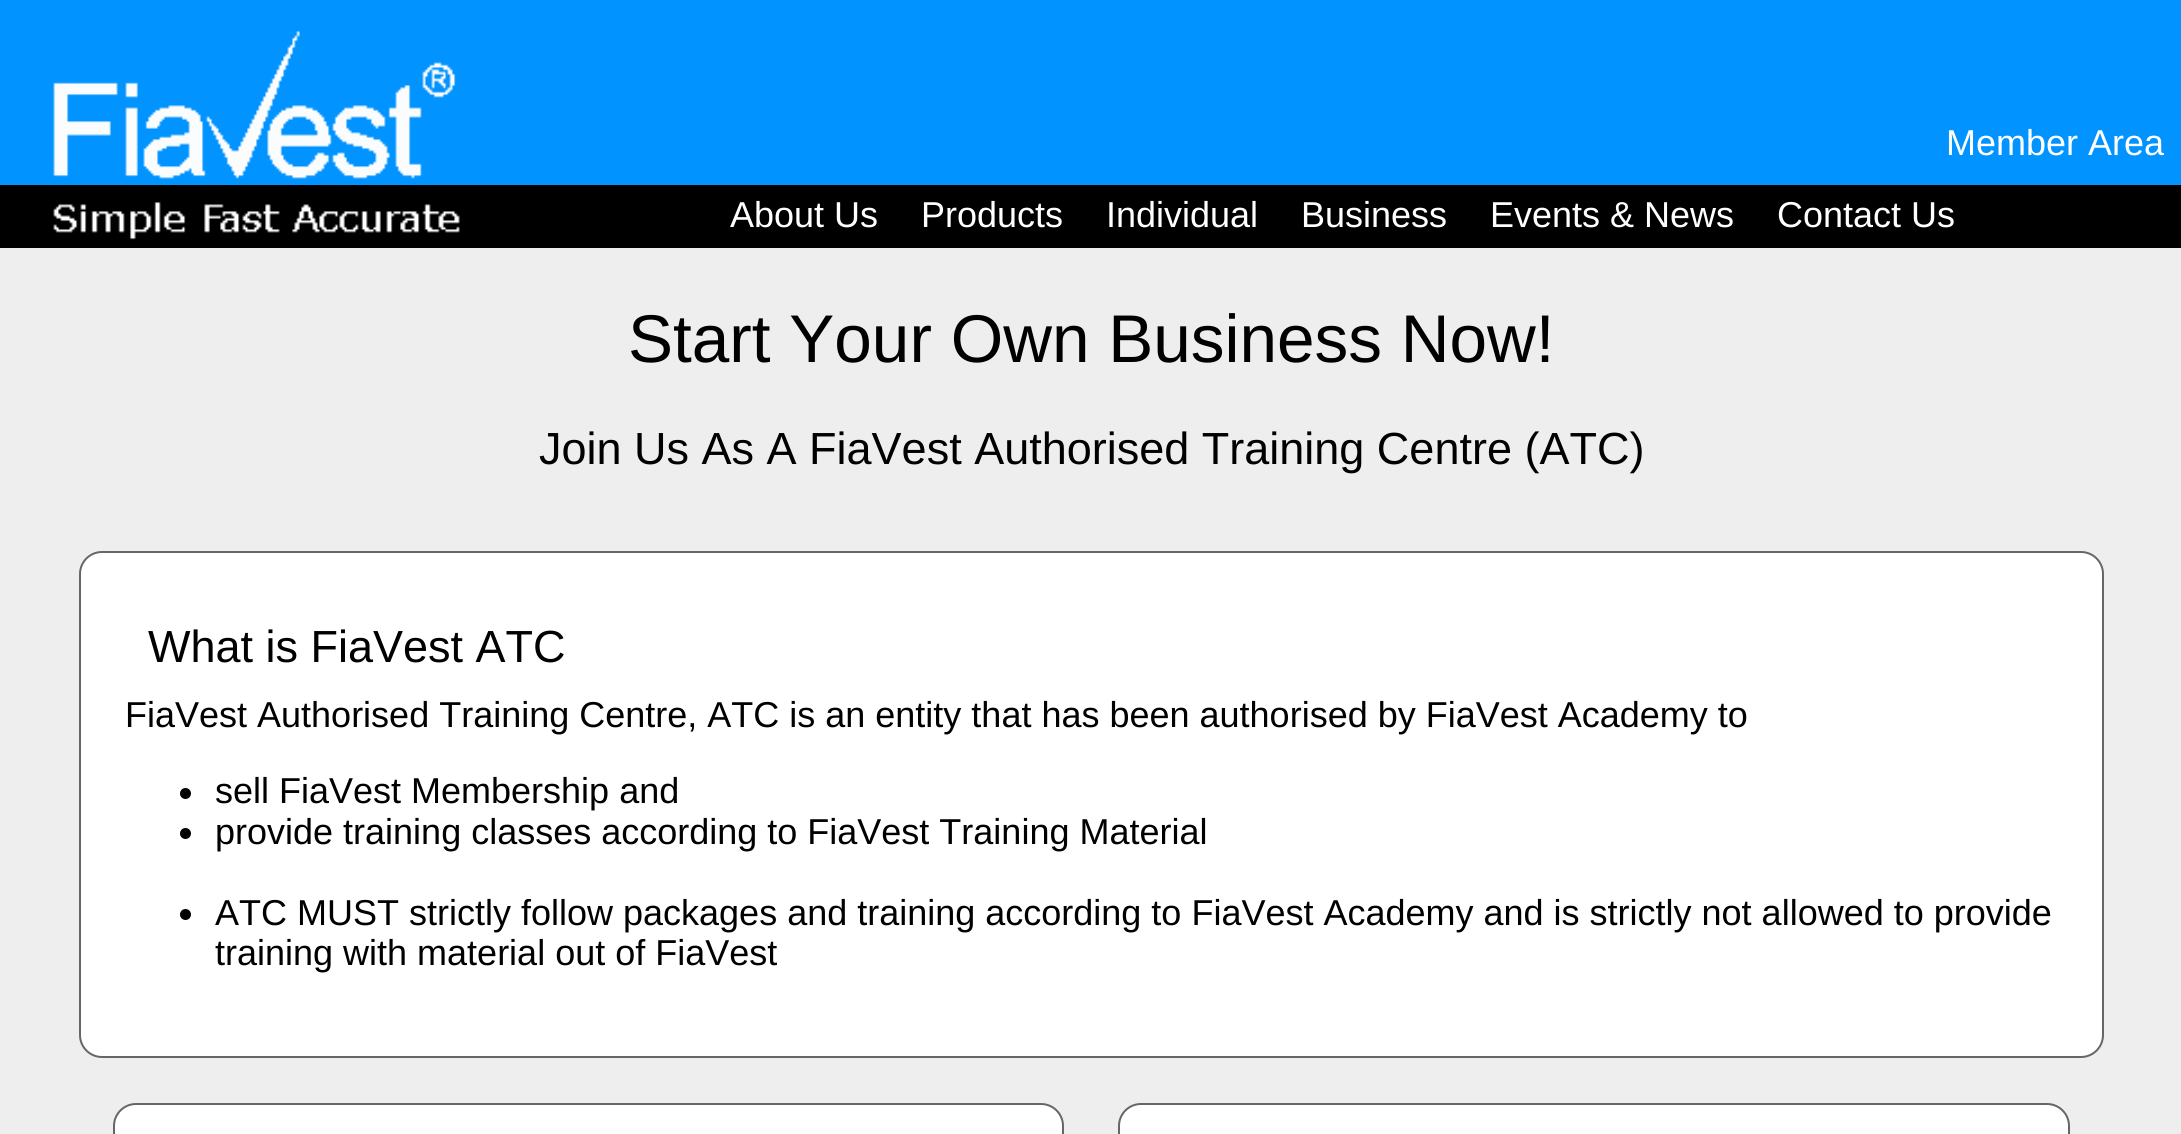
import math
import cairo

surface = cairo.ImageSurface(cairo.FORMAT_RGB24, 2181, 1134)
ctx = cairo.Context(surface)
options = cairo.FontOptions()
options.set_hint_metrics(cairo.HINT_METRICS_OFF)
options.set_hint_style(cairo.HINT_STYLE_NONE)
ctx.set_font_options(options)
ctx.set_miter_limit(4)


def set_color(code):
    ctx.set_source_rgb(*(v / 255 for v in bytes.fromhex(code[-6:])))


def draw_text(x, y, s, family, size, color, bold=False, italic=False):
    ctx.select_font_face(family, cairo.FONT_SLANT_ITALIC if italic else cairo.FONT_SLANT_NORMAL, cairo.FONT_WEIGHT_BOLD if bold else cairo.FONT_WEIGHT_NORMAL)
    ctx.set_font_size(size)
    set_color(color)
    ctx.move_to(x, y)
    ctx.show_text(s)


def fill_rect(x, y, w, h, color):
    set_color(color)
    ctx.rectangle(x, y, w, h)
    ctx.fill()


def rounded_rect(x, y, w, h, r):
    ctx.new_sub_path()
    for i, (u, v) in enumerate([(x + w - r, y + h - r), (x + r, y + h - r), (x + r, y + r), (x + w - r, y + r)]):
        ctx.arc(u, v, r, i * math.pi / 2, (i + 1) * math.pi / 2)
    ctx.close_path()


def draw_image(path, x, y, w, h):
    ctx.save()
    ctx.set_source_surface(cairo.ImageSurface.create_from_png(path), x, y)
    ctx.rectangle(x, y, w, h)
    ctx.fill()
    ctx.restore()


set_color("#eeeeee")
ctx.paint()
fill_rect(0, 185, 2181, 63, "#000000")
fill_rect(0, 0, 2181, 185, "#0193ff")
draw_image("assets/img1.png", 53, 31, 407, 209)
draw_text(1946, 155, "Member Area", "Liberation Sans", 36, "#ffffff")
draw_text(730, 227, "About Us", "Liberation Sans", 36, "#ffffff")
draw_text(921, 227, "Products", "Liberation Sans", 36, "#ffffff")
draw_text(1106, 227, "Individual", "Liberation Sans", 36, "#ffffff")
draw_text(1301, 227, "Business", "Liberation Sans", 36, "#ffffff")
draw_text(1490, 227, "Events & News", "Liberation Sans", 36, "#ffffff")
draw_text(1777, 227, "Contact Us", "Liberation Sans", 36, "#ffffff")
draw_text(628, 362, "Start Your Own Business Now!", "Liberation Sans", 67.5, "#000000")
draw_text(539, 464, "Join Us As A FiaVest Authorised Training Centre (ATC)", "Liberation Sans", 45, "#000000")
set_color("#ffffff")
rounded_rect(80, 552, 2023, 505, 22)
ctx.fill_preserve()
set_color("#666666")
ctx.stroke()
draw_text(148, 662, "What is FiaVest ATC", "Liberation Sans", 45, "#000000")
draw_text(125, 727, "FiaVest Authorised Training Centre, ATC is an entity that has been authorised by FiaVest Academy to", "Liberation Sans", 36, "#000000")
ctx.new_path()
ctx.arc(185.5, 793.5, 5.5, 0, 2 * math.pi)
ctx.fill()
draw_text(215, 803, "sell FiaVest Membership and", "Liberation Sans", 36, "#000000")
ctx.new_path()
ctx.arc(185.5, 833.5, 5.5, 0, 2 * math.pi)
ctx.fill()
draw_text(215, 844, "provide training classes according to FiaVest Training Material", "Liberation Sans", 36, "#000000")
ctx.new_path()
ctx.arc(185.5, 914.5, 5.5, 0, 2 * math.pi)
ctx.fill()
draw_text(215, 925, "ATC MUST strictly follow packages and training according to FiaVest Academy and is strictly not allowed to provide", "Liberation Sans", 36, "#000000")
draw_text(215, 965, "training with material out of FiaVest", "Liberation Sans", 36, "#000000")
set_color("#ffffff")
rounded_rect(114, 1104, 949, 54, 22)
ctx.fill_preserve()
set_color("#666666")
ctx.stroke()
set_color("#ffffff")
rounded_rect(1119, 1104, 950, 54, 22)
ctx.fill_preserve()
set_color("#666666")
ctx.stroke()
surface.write_to_png("output.png")
